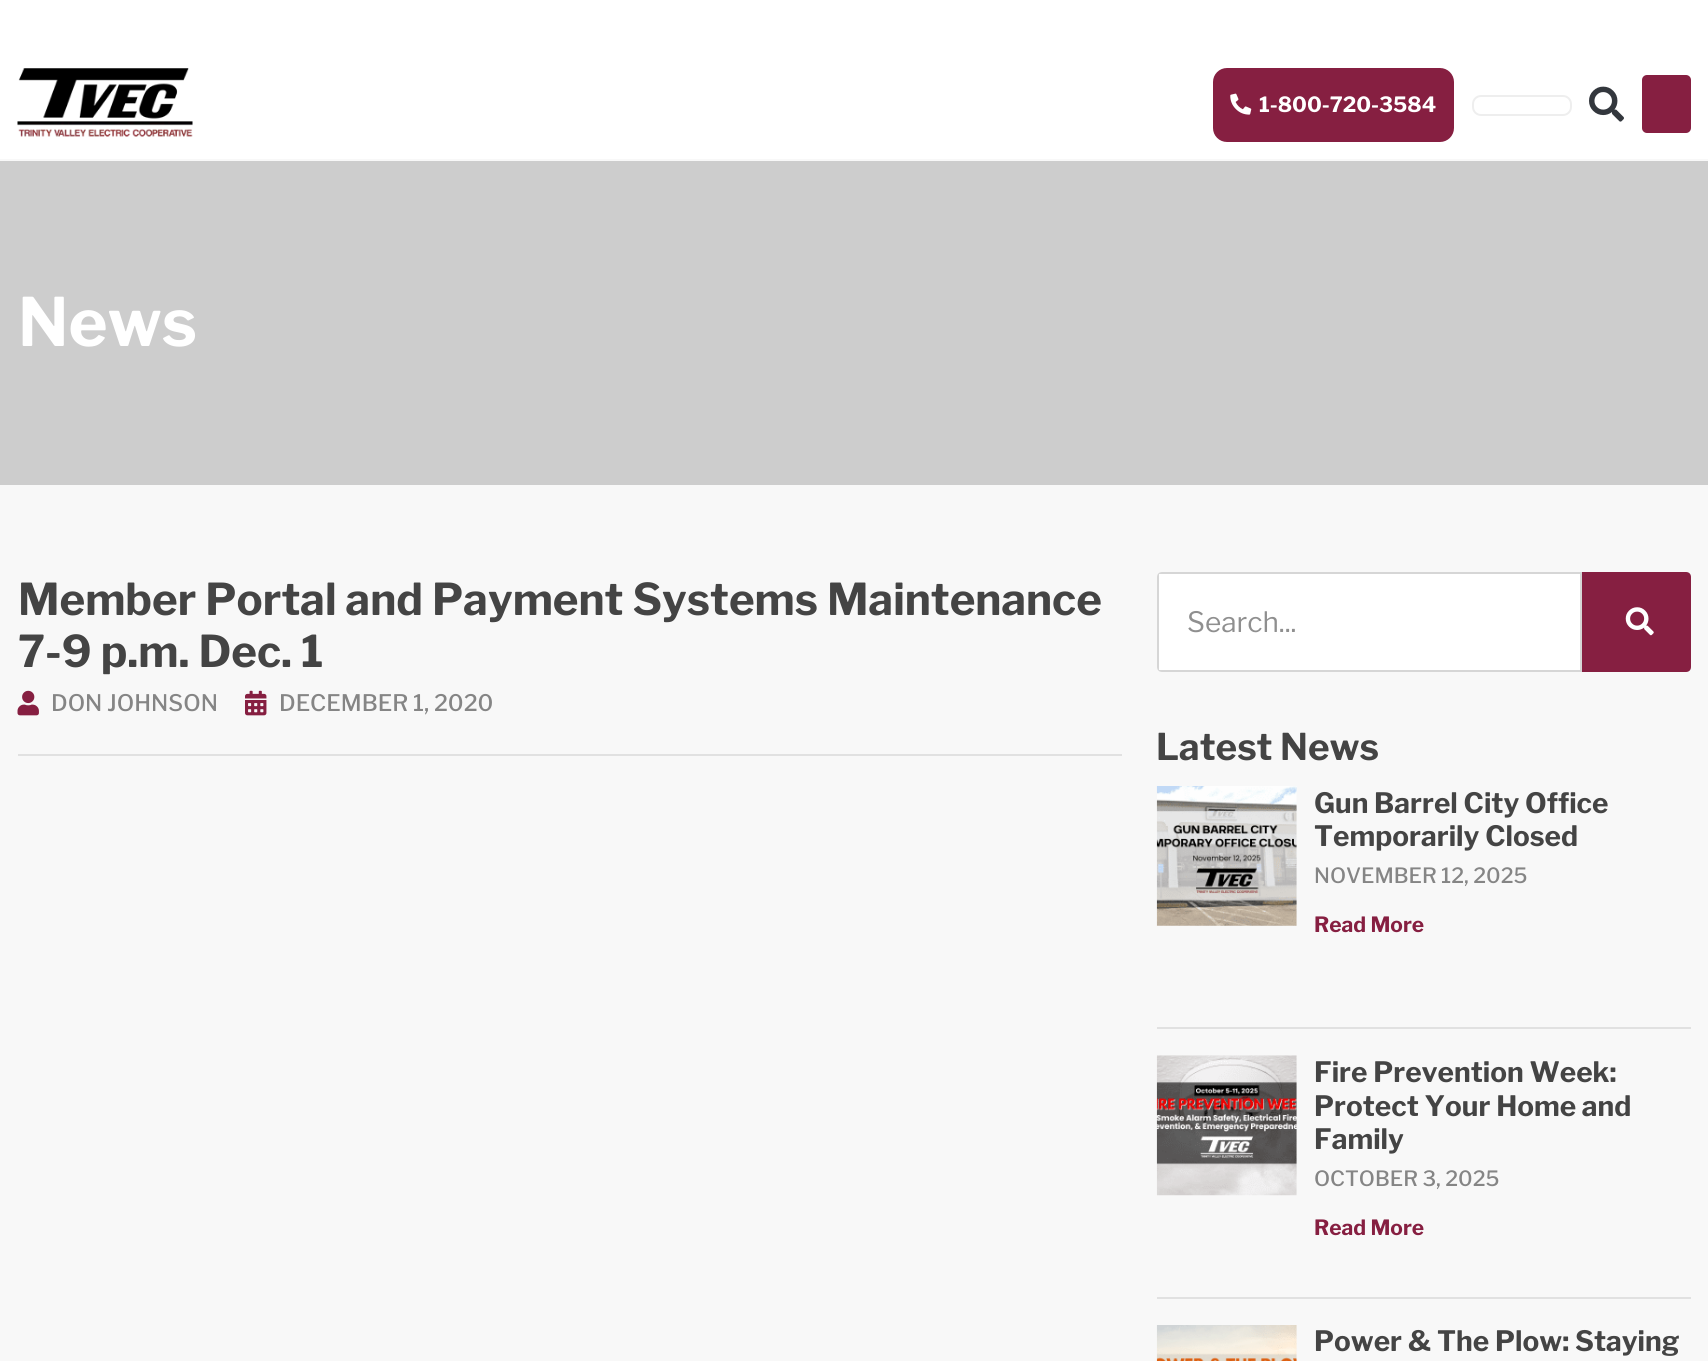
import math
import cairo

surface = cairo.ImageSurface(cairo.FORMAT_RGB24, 1708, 1361)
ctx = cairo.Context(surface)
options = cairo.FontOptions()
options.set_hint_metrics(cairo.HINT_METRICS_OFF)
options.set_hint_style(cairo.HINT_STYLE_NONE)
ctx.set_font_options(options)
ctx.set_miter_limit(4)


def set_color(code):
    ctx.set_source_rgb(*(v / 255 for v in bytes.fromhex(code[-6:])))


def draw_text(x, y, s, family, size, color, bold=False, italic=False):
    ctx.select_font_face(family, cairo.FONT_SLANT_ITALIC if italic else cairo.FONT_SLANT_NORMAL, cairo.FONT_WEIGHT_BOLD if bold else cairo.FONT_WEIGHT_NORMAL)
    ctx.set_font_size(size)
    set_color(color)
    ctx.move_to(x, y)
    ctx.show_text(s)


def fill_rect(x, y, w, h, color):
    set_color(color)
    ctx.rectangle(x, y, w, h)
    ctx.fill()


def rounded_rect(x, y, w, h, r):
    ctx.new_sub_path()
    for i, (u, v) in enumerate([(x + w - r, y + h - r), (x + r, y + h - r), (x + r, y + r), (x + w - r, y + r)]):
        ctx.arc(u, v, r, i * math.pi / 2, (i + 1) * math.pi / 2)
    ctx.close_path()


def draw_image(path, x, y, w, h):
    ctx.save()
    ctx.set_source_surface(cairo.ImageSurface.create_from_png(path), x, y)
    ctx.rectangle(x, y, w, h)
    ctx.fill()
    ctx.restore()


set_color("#ffffff")
ctx.paint()
fill_rect(0, 159, 1708, 2, "#f8f8f8")
draw_image("assets/img1.png", 17, 68, 176, 69)
set_color("#861f41")
rounded_rect(1213, 68, 241, 74, 14)
ctx.fill()
draw_image("assets/img2.png", 1230, 93, 22, 22)
draw_text(1259, 112, "1-800-720-3584", "Libre Franklin", 21, "#ffffff", bold=True)
rounded_rect(1473, 96, 98, 19, 8)
set_color("#eeeeee")
ctx.stroke()
draw_image("assets/img3.png", 1589, 86, 35, 36)
set_color("#861f41")
rounded_rect(1642, 75, 49, 58, 5)
ctx.fill()
fill_rect(0, 161, 1708, 324, "#cdcdcd")
draw_text(18, 346, "News", "Libre Franklin", 66.5, "#ffffff", bold=True)
fill_rect(0, 485, 1708, 876, "#f8f8f8")
draw_text(18, 615, "Member Portal and Payment Systems Maintenance", "Libre Franklin", 43.75, "#444444", bold=True)
draw_text(18, 667, "7-9 p.m. Dec. 1", "Libre Franklin", 43.75, "#444444", bold=True)
draw_image("assets/img4.png", 17, 690, 22, 26)
draw_text(51, 711, "DON JOHNSON", "Libre Franklin Medium", 22.75, "#858585")
draw_image("assets/img5.png", 245, 690, 22, 26)
draw_text(279, 711, "DECEMBER 1, 2020", "Libre Franklin Medium", 22.75, "#858585")
fill_rect(18, 754, 1104, 2, "#e1e1e1")
set_color("#ffffff")
rounded_rect(1157, 572, 534, 100, 5)
ctx.fill()
set_color("#d6d6d6")
ctx.set_fill_rule(cairo.FILL_RULE_EVEN_ODD)
ctx.new_path()
ctx.move_to(1162, 572)
ctx.curve_to(1159, 572, 1157, 574, 1157, 577)
ctx.line_to(1157, 667)
ctx.curve_to(1157, 670, 1159, 672, 1162, 672)
ctx.line_to(1582, 672)
ctx.line_to(1582, 572)
ctx.close_path()
ctx.move_to(1159, 574)
ctx.line_to(1159, 670)
ctx.line_to(1580, 670)
ctx.line_to(1580, 574)
ctx.close_path()
ctx.fill()
draw_text(1187, 632, "Search...", "Libre Franklin", 28, "#8f8f8f")
set_color("#861f41")
ctx.new_path()
ctx.move_to(1582, 572)
ctx.line_to(1686, 572)
ctx.curve_to(1689, 572, 1691, 574, 1691, 577)
ctx.line_to(1691, 667)
ctx.curve_to(1691, 670, 1689, 672, 1686, 672)
ctx.line_to(1582, 672)
ctx.close_path()
ctx.fill()
draw_image("assets/img6.png", 1625, 607, 29, 29)
draw_text(1156, 760, "Latest News", "Libre Franklin", 36.75, "#444444", bold=True)
fill_rect(1157, 1027, 534, 2, "#e1e1e1")
draw_image("assets/img7.png", 1156, 786, 141, 140)
draw_text(1314, 813, "Gun Barrel City Office", "Libre Franklin", 28, "#444444", bold=True)
draw_text(1314, 846, "Temporarily Closed", "Libre Franklin", 28, "#444444", bold=True)
draw_text(1314, 883, "NOVEMBER 12, 2025", "Libre Franklin Medium", 21, "#858585")
draw_text(1314, 932, "Read More", "Libre Franklin", 21, "#861f41", bold=True)
fill_rect(1157, 1297, 534, 2, "#e1e1e1")
draw_image("assets/img8.png", 1156, 1055, 141, 141)
draw_text(1314, 1082, "Fire Prevention Week:", "Libre Franklin", 28, "#444444", bold=True)
draw_text(1314, 1116, "Protect Your Home and", "Libre Franklin", 28, "#444444", bold=True)
draw_text(1314, 1149, "Family", "Libre Franklin", 28, "#444444", bold=True)
draw_text(1314, 1186, "OCTOBER 3, 2025", "Libre Franklin Medium", 21, "#858585")
draw_text(1314, 1235, "Read More", "Libre Franklin", 21, "#861f41", bold=True)
draw_image("assets/img9.png", 1156, 1325, 141, 36)
draw_text(1314, 1351, "Power & The Plow: Staying", "Libre Franklin", 28, "#444444", bold=True)
surface.write_to_png("output.png")
